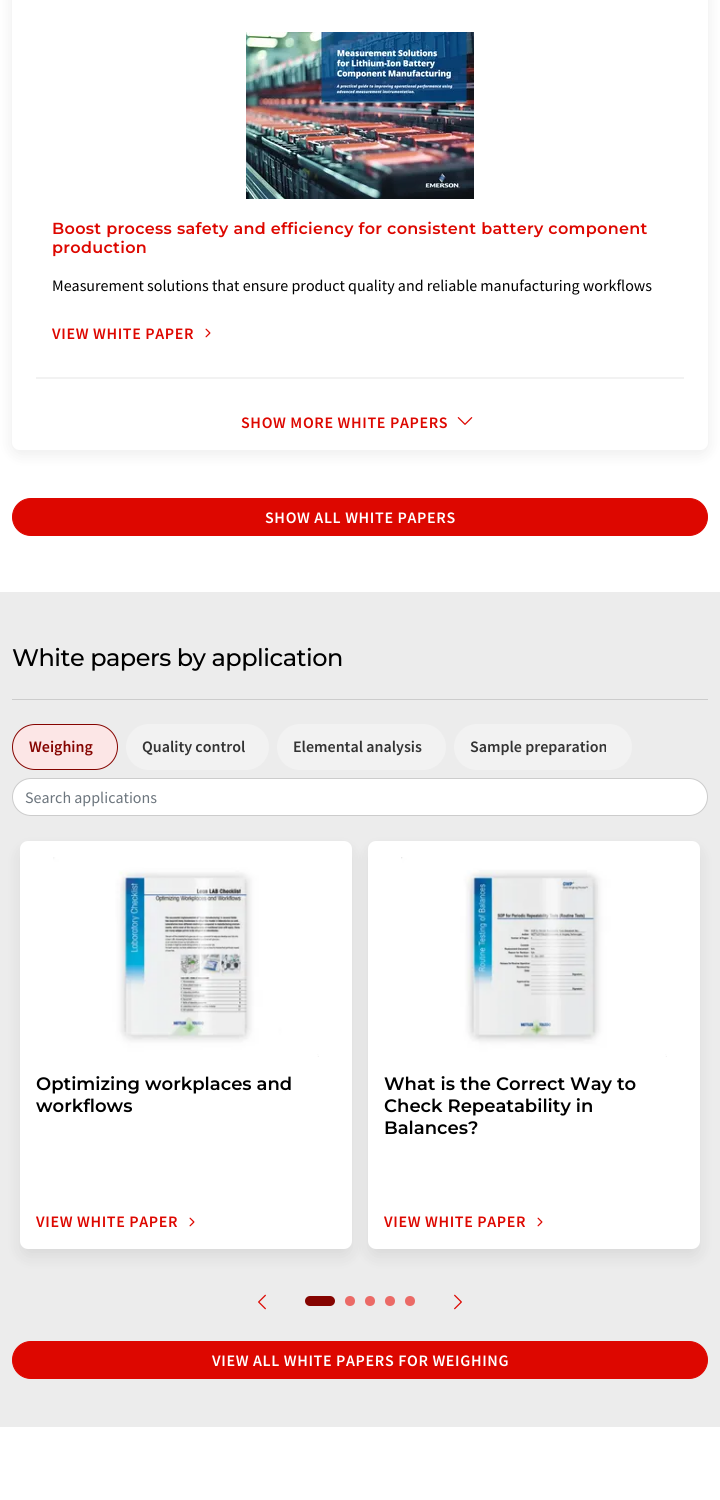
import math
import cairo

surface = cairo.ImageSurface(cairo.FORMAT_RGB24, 720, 1500)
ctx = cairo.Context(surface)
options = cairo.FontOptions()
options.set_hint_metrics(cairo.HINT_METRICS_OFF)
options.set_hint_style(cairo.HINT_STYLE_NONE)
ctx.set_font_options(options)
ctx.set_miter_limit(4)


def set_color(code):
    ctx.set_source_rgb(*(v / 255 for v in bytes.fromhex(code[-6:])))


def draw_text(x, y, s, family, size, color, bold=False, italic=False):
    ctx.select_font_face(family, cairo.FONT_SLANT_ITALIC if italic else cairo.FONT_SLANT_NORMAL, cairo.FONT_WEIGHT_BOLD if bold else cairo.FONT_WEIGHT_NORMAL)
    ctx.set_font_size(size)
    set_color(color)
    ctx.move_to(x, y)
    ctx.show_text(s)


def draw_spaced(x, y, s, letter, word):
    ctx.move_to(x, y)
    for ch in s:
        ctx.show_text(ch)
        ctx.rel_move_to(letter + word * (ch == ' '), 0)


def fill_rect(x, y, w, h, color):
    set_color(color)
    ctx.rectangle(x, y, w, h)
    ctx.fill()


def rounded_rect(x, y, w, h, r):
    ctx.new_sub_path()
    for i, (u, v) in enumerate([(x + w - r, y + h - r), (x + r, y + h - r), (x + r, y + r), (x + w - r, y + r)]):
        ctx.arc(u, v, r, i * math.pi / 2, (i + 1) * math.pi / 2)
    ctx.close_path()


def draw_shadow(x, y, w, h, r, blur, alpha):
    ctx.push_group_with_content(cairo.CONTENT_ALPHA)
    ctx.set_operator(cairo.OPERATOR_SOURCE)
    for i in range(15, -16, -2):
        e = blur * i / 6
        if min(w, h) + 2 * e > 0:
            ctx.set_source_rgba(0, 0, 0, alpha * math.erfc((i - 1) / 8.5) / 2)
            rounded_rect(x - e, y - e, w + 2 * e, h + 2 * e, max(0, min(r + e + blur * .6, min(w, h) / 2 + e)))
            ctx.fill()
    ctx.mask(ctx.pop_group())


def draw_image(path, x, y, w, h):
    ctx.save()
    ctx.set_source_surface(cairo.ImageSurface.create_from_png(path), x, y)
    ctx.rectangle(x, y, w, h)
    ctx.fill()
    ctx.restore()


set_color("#ffffff")
ctx.paint()
ctx.save()
ctx.set_fill_rule(cairo.FILL_RULE_EVEN_ODD)
ctx.new_path()
ctx.move_to(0, 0)
ctx.line_to(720, 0)
ctx.line_to(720, 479)
ctx.line_to(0, 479)
ctx.close_path()
ctx.move_to(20, -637)
ctx.line_to(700, -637)
ctx.curve_to(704.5, -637, 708, -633.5, 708, -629)
ctx.line_to(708, 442)
ctx.curve_to(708, 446.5, 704.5, 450, 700, 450)
ctx.line_to(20, 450)
ctx.curve_to(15.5, 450, 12, 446.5, 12, 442)
ctx.line_to(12, -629)
ctx.curve_to(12, -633.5, 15.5, -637, 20, -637)
ctx.close_path()
ctx.clip()
set_color("#000000")
draw_shadow(12, -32, 696, 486, 8, 8, 0.08)
ctx.restore()
fill_rect(36, 377, 648, 2, "#f2f2f2")
draw_image("assets/img1.png", 246, 32, 228, 167)
ctx.select_font_face("Montserrat Thin")
ctx.set_font_size(16)
set_color("#dd0700")
draw_spaced(52, 234, "Boost process safety and efficiency for consistent battery component", 0.32, 0)
draw_spaced(52, 253, "production", 0.32, 0)
draw_text(52, 291, "Measurement solutions that ensure product quality and reliable manufacturing workflows", "Source Sans Pro", 16, "#000000")
ctx.select_font_face("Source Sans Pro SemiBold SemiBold")
set_color("#dd0700")
draw_spaced(52, 339, "VIEW WHITE PAPER", 0.65, 0)
draw_image("assets/img2.png", 205, 328, 6, 10)
draw_spaced(241, 428, "SHOW MORE WHITE PAPERS", 0.65, 0)
draw_image("assets/img3.png", 457, 417, 16, 8)
rounded_rect(12.5, 498.5, 695, 37, 18.5)
ctx.fill_preserve()
ctx.set_line_width(1)
ctx.stroke()
set_color("#ffffff")
draw_spaced(265, 523, "SHOW ALL WHITE PAPERS", 0.65, 0)
fill_rect(0, 592, 720, 835, "#ececec")
ctx.select_font_face("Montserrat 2 Thin")
ctx.set_font_size(24)
set_color("#000000")
draw_spaced(12, 666, "White papers by application", -0.5, 0)
fill_rect(12, 699, 696, 1, "#cccccc")
set_color("#fce6e6")
rounded_rect(12.5, 724.5, 105, 45, 22.5)
ctx.fill_preserve()
set_color("#850400")
ctx.stroke()
draw_text(29, 752, "Weighing", "Source Sans Pro SemiBold SemiBold", 16, "#850400")
set_color("#f2f2f2")
rounded_rect(126, 724, 143, 46, 23)
ctx.fill()
draw_text(142, 752, "Quality control", "Source Sans Pro SemiBold SemiBold", 16, "#333333")
set_color("#f2f2f2")
rounded_rect(277, 724, 169, 46, 23)
ctx.fill()
draw_text(293, 752, "Elemental analysis", "Source Sans Pro SemiBold SemiBold", 16, "#333333")
set_color("#f2f2f2")
rounded_rect(454, 724, 178, 46, 23)
ctx.fill()
draw_text(470, 752, "Sample preparation", "Source Sans Pro SemiBold SemiBold", 16, "#333333")
set_color("#ffffff")
rounded_rect(12.5, 778.5, 695, 37, 18.5)
ctx.fill_preserve()
set_color("#cccccc")
ctx.stroke()
draw_text(25, 803, "Search applications", "Source Sans Pro", 16, "#6c757d")
set_color("#000000")
draw_shadow(20, 849, 332, 408, 8, 8, 0.08)
set_color("#ffffff")
rounded_rect(20, 841, 332, 408, 8)
ctx.fill()
draw_image("assets/img4.png", 53, 857, 266, 200)
draw_text(36, 1090, "Optimizing workplaces and", "Montserrat Thin", 18, "#000000")
draw_text(36, 1112, "workflows", "Montserrat Thin", 18, "#000000")
ctx.select_font_face("Source Sans Pro SemiBold SemiBold")
ctx.set_font_size(16)
set_color("#dd0700")
draw_spaced(36, 1227, "VIEW WHITE PAPER", 0.65, 0)
draw_image("assets/img2.png", 189, 1217, 6, 10)
set_color("#000000")
draw_shadow(368, 849, 332, 408, 8, 8, 0.08)
set_color("#ffffff")
rounded_rect(368, 841, 332, 408, 8)
ctx.fill()
draw_image("assets/img5.png", 401, 857, 266, 200)
draw_text(384, 1090, "What is the Correct Way to", "Montserrat Thin", 18, "#000000")
draw_text(384, 1112, "Check Repeatability in", "Montserrat Thin", 18, "#000000")
draw_text(384, 1134, "Balances?", "Montserrat Thin", 18, "#000000")
ctx.select_font_face("Source Sans Pro SemiBold SemiBold")
ctx.set_font_size(16)
set_color("#dd0700")
draw_spaced(384, 1227, "VIEW WHITE PAPER", 0.65, 0)
draw_image("assets/img2.png", 537, 1217, 6, 10)
draw_image("assets/img6.png", 258, 1294, 8, 16)
set_color("#850400")
rounded_rect(305, 1296, 30, 10, 5)
ctx.fill()
set_color("#eb6a66")
ctx.arc(350, 1301, 5, 0, 2 * math.pi)
ctx.fill()
ctx.arc(370, 1301, 5, 0, 2 * math.pi)
ctx.fill()
ctx.arc(390, 1301, 5, 0, 2 * math.pi)
ctx.fill()
ctx.arc(410, 1301, 5, 0, 2 * math.pi)
ctx.fill()
draw_image("assets/img7.png", 454, 1294, 8, 16)
set_color("#dd0700")
rounded_rect(12.5, 1341.5, 695, 37, 18.5)
ctx.fill_preserve()
ctx.stroke()
set_color("#ffffff")
draw_spaced(212, 1366, "VIEW ALL WHITE PAPERS FOR WEIGHING", 0.65, 0)
surface.write_to_png("output.png")
